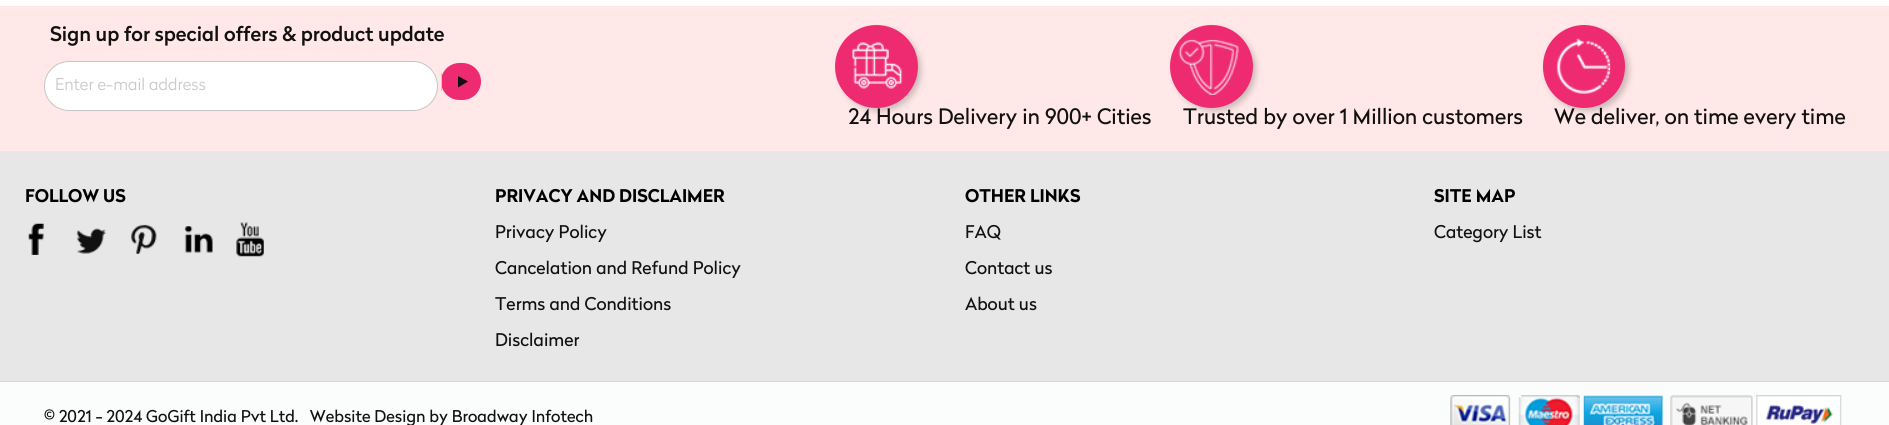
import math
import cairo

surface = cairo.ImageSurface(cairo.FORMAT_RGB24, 1889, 425)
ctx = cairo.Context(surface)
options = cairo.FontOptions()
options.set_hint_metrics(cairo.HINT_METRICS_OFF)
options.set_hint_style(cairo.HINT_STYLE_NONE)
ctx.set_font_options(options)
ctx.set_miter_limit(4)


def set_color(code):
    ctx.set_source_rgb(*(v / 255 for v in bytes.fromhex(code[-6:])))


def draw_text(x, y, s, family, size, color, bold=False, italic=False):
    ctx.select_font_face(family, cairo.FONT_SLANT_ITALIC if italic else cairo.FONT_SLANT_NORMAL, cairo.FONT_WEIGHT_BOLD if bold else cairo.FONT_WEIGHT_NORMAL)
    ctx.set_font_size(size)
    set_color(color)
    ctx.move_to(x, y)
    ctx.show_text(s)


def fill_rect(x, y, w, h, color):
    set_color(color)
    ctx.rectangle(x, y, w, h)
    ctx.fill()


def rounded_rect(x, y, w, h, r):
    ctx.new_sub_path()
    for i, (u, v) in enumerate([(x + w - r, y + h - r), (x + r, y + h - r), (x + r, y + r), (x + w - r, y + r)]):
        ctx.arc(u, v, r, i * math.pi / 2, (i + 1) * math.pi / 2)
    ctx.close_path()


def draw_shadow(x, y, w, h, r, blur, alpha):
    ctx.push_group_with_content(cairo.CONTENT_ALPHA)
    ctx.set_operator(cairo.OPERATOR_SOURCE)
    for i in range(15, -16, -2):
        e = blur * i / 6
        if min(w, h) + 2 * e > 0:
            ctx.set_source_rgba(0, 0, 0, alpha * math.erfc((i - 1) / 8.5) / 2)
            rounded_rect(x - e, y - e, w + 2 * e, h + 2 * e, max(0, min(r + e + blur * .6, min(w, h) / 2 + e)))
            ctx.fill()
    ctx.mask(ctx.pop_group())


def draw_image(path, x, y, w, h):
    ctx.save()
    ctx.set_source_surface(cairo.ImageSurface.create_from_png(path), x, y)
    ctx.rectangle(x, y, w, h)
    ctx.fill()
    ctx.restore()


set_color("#ffffff")
ctx.paint()
fill_rect(0, 6, 1889, 145, "#ffe8e7")
draw_text(50, 41, "Sign up for special offers & product update", "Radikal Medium", 20, "#111111")
set_color("#ffffff")
rounded_rect(44.5, 61.5, 393, 49, 24.5)
ctx.fill_preserve()
set_color("#c6c6c6")
ctx.set_line_width(1)
ctx.stroke()
draw_text(55, 90, "Enter e-mail address", "Radikal Light", 16.25, "#c9c9c9")
set_color("#ee2b71")
rounded_rect(441, 63, 40, 37, 18.5)
ctx.fill()
fill_rect(441, 73, 1, 18, "#cdcdcd")
set_color("#111111")
ctx.new_path()
ctx.move_to(458, 76)
ctx.line_to(468, 81.5)
ctx.line_to(458, 87.5)
ctx.close_path()
ctx.fill()
set_color("#000000")
draw_shadow(839, 29, 82, 82, 41, 3, 0.2)
set_color("#ee2b71")
ctx.arc(876.5, 66.5, 41.5, 0, 2 * math.pi)
ctx.fill()
draw_image("assets/img1.png", 852, 42, 51, 47)
draw_text(848, 124, "24 Hours Delivery in 900+ Cities", "Radikal", 21.25, "#111111")
set_color("#000000")
draw_shadow(1174, 29, 82, 82, 41, 3, 0.2)
set_color("#ee2b71")
ctx.arc(1211.5, 66.5, 41.5, 0, 2 * math.pi)
ctx.fill()
draw_image("assets/img2.png", 1178, 39, 61, 56)
draw_text(1183, 124, "Trusted by over 1 Million customers", "Radikal", 21.25, "#111111")
set_color("#000000")
draw_shadow(1546, 29, 83, 82, 41, 3, 0.2)
set_color("#ee2b71")
rounded_rect(1543, 25, 82, 83, 41)
ctx.fill()
draw_image("assets/img3.png", 1556, 38, 55, 56)
draw_text(1554, 124, "We deliver, on time every time", "Radikal", 21.25, "#111111")
fill_rect(0, 151, 1889, 230, "#e7e7e8")
draw_text(25, 202, "FOLLOW US", "Radikal", 17.5, "#000000", bold=True)
draw_image("assets/img4.png", 28, 223, 16, 32)
draw_image("assets/img5.png", 76, 228, 31, 26)
draw_image("assets/img6.png", 131, 224, 26, 30)
draw_image("assets/img7.png", 184, 226, 29, 27)
draw_image("assets/img8.png", 236, 222, 28, 35)
draw_text(495, 202, "PRIVACY AND DISCLAIMER", "Radikal", 17.5, "#000000", bold=True)
draw_text(495, 238, "Privacy Policy", "Radikal", 17.5, "#111111")
draw_text(495, 274, "Cancelation and Refund Policy", "Radikal", 17.5, "#111111")
draw_text(495, 310, "Terms and Conditions", "Radikal", 17.5, "#111111")
draw_text(495, 346, "Disclaimer", "Radikal", 17.5, "#111111")
draw_text(965, 202, "OTHER LINKS", "Radikal", 17.5, "#000000", bold=True)
draw_text(965, 238, "FAQ", "Radikal", 17.5, "#111111")
draw_text(965, 274, "Contact us", "Radikal", 17.5, "#111111")
draw_text(965, 310, "About us", "Radikal", 17.5, "#111111")
draw_text(1434, 202, "SITE MAP", "Radikal", 17.5, "#000000", bold=True)
draw_text(1434, 238, "Category List", "Radikal", 17.5, "#111111")
fill_rect(0, 382, 1889, 43, "#fbfcfc")
fill_rect(0, 381, 1889, 1, "#d0d6db")
draw_text(44, 422, "© 2021 - 2024 GoGift India Pvt Ltd.   Website Design by Broadway Infotech", "Radikal", 16.25, "#111111")
draw_image("assets/img9.png", 1450, 395, 61, 30)
draw_image("assets/img10.png", 1518, 395, 62, 30)
draw_image("assets/img11.png", 1583, 395, 80, 30)
draw_image("assets/img12.png", 1670, 395, 83, 30)
draw_image("assets/img13.png", 1756, 395, 86, 30)
surface.write_to_png("output.png")
